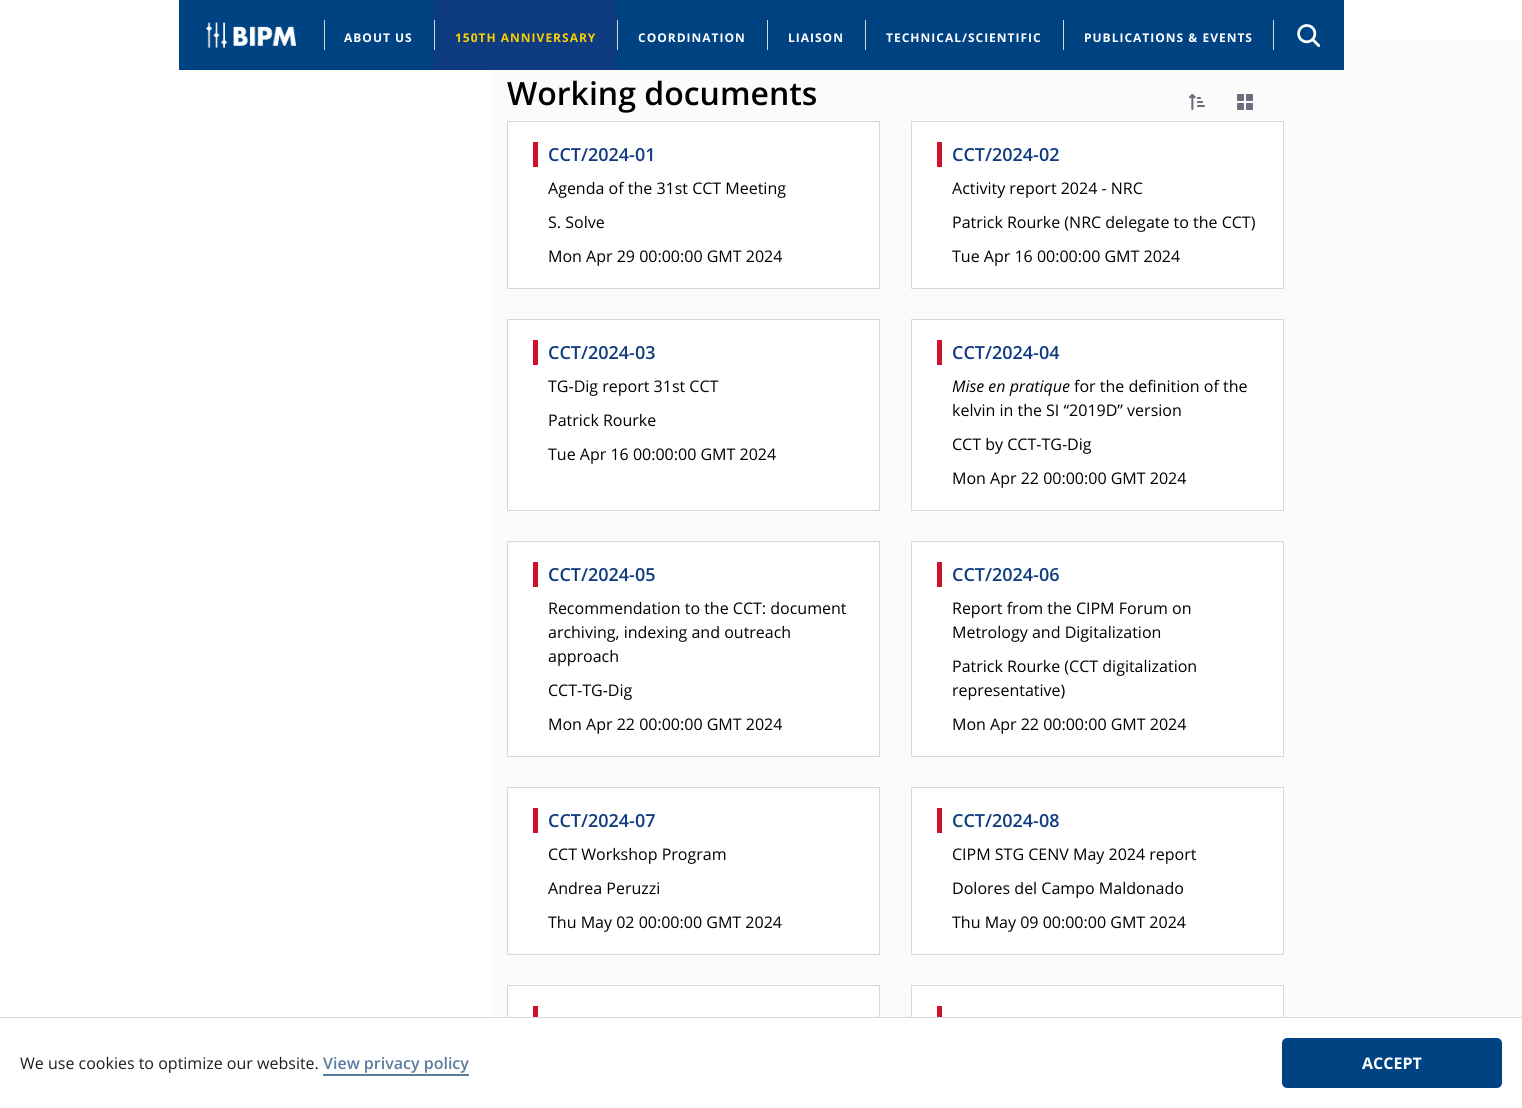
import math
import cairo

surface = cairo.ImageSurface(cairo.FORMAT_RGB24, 1522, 1108)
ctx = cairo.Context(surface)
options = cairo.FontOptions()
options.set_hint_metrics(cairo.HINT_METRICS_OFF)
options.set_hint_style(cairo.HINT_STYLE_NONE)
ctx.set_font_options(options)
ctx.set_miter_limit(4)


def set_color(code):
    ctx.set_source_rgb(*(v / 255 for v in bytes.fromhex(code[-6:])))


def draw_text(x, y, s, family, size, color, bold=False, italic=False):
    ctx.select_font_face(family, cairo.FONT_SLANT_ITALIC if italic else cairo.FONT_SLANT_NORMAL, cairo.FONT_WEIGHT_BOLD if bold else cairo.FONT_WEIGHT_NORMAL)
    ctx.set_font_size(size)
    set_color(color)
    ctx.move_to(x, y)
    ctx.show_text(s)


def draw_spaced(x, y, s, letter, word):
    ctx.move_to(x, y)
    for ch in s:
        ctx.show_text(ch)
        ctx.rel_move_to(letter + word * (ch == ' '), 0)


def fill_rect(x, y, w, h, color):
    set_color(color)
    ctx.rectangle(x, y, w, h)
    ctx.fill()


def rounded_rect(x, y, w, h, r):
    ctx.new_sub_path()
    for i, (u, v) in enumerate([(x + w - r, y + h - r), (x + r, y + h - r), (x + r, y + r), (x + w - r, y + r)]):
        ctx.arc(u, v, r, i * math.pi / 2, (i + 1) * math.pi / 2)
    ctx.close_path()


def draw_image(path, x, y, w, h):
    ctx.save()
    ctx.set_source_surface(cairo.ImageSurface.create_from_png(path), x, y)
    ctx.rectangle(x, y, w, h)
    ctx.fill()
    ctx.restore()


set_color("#ffffff")
ctx.paint()
fill_rect(1284, 41, 238, 976, "#fbfbfb")
fill_rect(179, 0, 1165, 70, "#004382")
draw_image("assets/img1.png", 206, 22, 90, 26)
fill_rect(324, 20, 1, 30, "#d8d8d8")
ctx.select_font_face("Open Sans", cairo.FONT_SLANT_NORMAL, cairo.FONT_WEIGHT_BOLD)
ctx.set_font_size(12)
set_color("#ffffff")
draw_spaced(344, 42, "ABOUT US", 1, 0)
fill_rect(434, 0, 183, 70, "#0f3c80")
fill_rect(434, 20, 1, 30, "#d8d8d8")
set_color("#fccf00")
draw_spaced(455, 42, "150TH ANNIVERSARY", 1, 0)
fill_rect(617, 20, 1, 30, "#d8d8d8")
set_color("#ffffff")
draw_spaced(638, 42, "COORDINATION", 1, 0)
fill_rect(767, 20, 1, 30, "#d8d8d8")
set_color("#ffffff")
draw_spaced(788, 42, "LIAISON", 1, 0)
fill_rect(865, 20, 1, 30, "#d8d8d8")
set_color("#ffffff")
draw_spaced(886, 42, "TECHNICAL/SCIENTIFIC", 1, 0)
fill_rect(1063, 20, 1, 30, "#d8d8d8")
set_color("#ffffff")
draw_spaced(1084, 42, "PUBLICATIONS & EVENTS", 1, 0)
fill_rect(1273, 20, 1, 30, "#d8d8d8")
draw_image("assets/img2.png", 1297, 24, 24, 23)
fill_rect(492, 70, 792, 947, "#fbfbfb")
draw_text(507, 105, "Working documents", "Open Sans SemiBold", 32, "#000000")
draw_image("assets/img3.png", 1189, 94, 16, 16)
draw_image("assets/img4.png", 1237, 94, 16, 16)
set_color("#ffffff")
ctx.rectangle(507.5, 121.5, 372, 167)
ctx.fill_preserve()
set_color("#d8d8d8")
ctx.set_line_width(1)
ctx.stroke()
fill_rect(533, 142, 5, 25, "#cf112d")
draw_text(548, 161, "CCT/2024-01", "Open Sans SemiBold", 18, "#0f3c80")
draw_text(548, 194, "Agenda of the 31st CCT Meeting", "Open Sans", 16, "#000000")
draw_text(548, 228, "S. Solve", "Open Sans", 16, "#000000")
draw_text(548, 262, "Mon Apr 29 00:00:00 GMT 2024", "Open Sans", 16, "#000000")
set_color("#ffffff")
ctx.rectangle(911.5, 121.5, 372, 167)
ctx.fill_preserve()
set_color("#d8d8d8")
ctx.stroke()
fill_rect(937, 142, 5, 25, "#cf112d")
draw_text(952, 161, "CCT/2024-02", "Open Sans SemiBold", 18, "#0f3c80")
draw_text(952, 194, "Activity report 2024 - NRC", "Open Sans", 16, "#000000")
draw_text(952, 228, "Patrick Rourke (NRC delegate to the CCT)", "Open Sans", 16, "#000000")
draw_text(952, 262, "Tue Apr 16 00:00:00 GMT 2024", "Open Sans", 16, "#000000")
set_color("#ffffff")
ctx.rectangle(507.5, 319.5, 372, 191)
ctx.fill_preserve()
set_color("#d8d8d8")
ctx.stroke()
fill_rect(533, 340, 5, 25, "#cf112d")
draw_text(548, 359, "CCT/2024-03", "Open Sans SemiBold", 18, "#0f3c80")
draw_text(548, 392, "TG-Dig report 31st CCT", "Open Sans", 16, "#000000")
draw_text(548, 426, "Patrick Rourke", "Open Sans", 16, "#000000")
draw_text(548, 460, "Tue Apr 16 00:00:00 GMT 2024", "Open Sans", 16, "#000000")
set_color("#ffffff")
ctx.rectangle(911.5, 319.5, 372, 191)
ctx.fill_preserve()
set_color("#d8d8d8")
ctx.stroke()
fill_rect(937, 340, 5, 25, "#cf112d")
draw_text(952, 359, "CCT/2024-04", "Open Sans SemiBold", 18, "#0f3c80")
draw_text(952, 392, "Mise en pratique", "Open Sans", 16, "#000000", italic=True)
draw_text(1074, 392, "for the definition of the", "Open Sans", 16, "#000000")
draw_text(952, 416, "kelvin in the SI “2019D” version", "Open Sans", 16, "#000000")
draw_text(952, 450, "CCT by CCT-TG-Dig", "Open Sans", 16, "#000000")
draw_text(952, 484, "Mon Apr 22 00:00:00 GMT 2024", "Open Sans", 16, "#000000")
set_color("#ffffff")
ctx.rectangle(507.5, 541.5, 372, 215)
ctx.fill_preserve()
set_color("#d8d8d8")
ctx.stroke()
fill_rect(533, 562, 5, 25, "#cf112d")
draw_text(548, 581, "CCT/2024-05", "Open Sans SemiBold", 18, "#0f3c80")
draw_text(548, 614, "Recommendation to the CCT: document", "Open Sans", 16, "#000000")
draw_text(548, 638, "archiving, indexing and outreach", "Open Sans", 16, "#000000")
draw_text(548, 662, "approach", "Open Sans", 16, "#000000")
draw_text(548, 696, "CCT-TG-Dig", "Open Sans", 16, "#000000")
draw_text(548, 730, "Mon Apr 22 00:00:00 GMT 2024", "Open Sans", 16, "#000000")
set_color("#ffffff")
ctx.rectangle(911.5, 541.5, 372, 215)
ctx.fill_preserve()
set_color("#d8d8d8")
ctx.stroke()
fill_rect(937, 562, 5, 25, "#cf112d")
draw_text(952, 581, "CCT/2024-06", "Open Sans SemiBold", 18, "#0f3c80")
draw_text(952, 614, "Report from the CIPM Forum on", "Open Sans", 16, "#000000")
draw_text(952, 638, "Metrology and Digitalization", "Open Sans", 16, "#000000")
draw_text(952, 672, "Patrick Rourke (CCT digitalization", "Open Sans", 16, "#000000")
draw_text(952, 696, "representative)", "Open Sans", 16, "#000000")
draw_text(952, 730, "Mon Apr 22 00:00:00 GMT 2024", "Open Sans", 16, "#000000")
set_color("#ffffff")
ctx.rectangle(507.5, 787.5, 372, 167)
ctx.fill_preserve()
set_color("#d8d8d8")
ctx.stroke()
fill_rect(533, 808, 5, 25, "#cf112d")
draw_text(548, 827, "CCT/2024-07", "Open Sans SemiBold", 18, "#0f3c80")
draw_text(548, 860, "CCT Workshop Program", "Open Sans", 16, "#000000")
draw_text(548, 894, "Andrea Peruzzi", "Open Sans", 16, "#000000")
draw_text(548, 928, "Thu May 02 00:00:00 GMT 2024", "Open Sans", 16, "#000000")
set_color("#ffffff")
ctx.rectangle(911.5, 787.5, 372, 167)
ctx.fill_preserve()
set_color("#d8d8d8")
ctx.stroke()
fill_rect(937, 808, 5, 25, "#cf112d")
draw_text(952, 827, "CCT/2024-08", "Open Sans SemiBold", 18, "#0f3c80")
draw_text(952, 860, "CIPM STG CENV May 2024 report", "Open Sans", 16, "#000000")
draw_text(952, 894, "Dolores del Campo Maldonado", "Open Sans", 16, "#000000")
draw_text(952, 928, "Thu May 09 00:00:00 GMT 2024", "Open Sans", 16, "#000000")
fill_rect(508, 986, 371, 31, "#ffffff")
ctx.rectangle(507.5, 985.5, 372, 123)
set_color("#d8d8d8")
ctx.stroke()
fill_rect(533, 1006, 5, 11, "#cf112d")
fill_rect(912, 986, 371, 31, "#ffffff")
ctx.rectangle(911.5, 985.5, 372, 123)
set_color("#d8d8d8")
ctx.stroke()
fill_rect(937, 1006, 5, 11, "#cf112d")
fill_rect(507, 1018, 777, 90, "#ffffff")
fill_rect(0, 1017, 1522, 1, "#d8d8d8")
draw_text(20, 1069, "We use cookies to optimize our website.", "Open Sans", 16, "#1a2024")
fill_rect(323, 1074, 146, 2, "#597da1")
draw_text(323, 1069, "View privacy policy", "Open Sans SemiBold", 16, "#597da1")
set_color("#004382")
rounded_rect(1284, 1040, 216, 46, 3)
ctx.fill_preserve()
ctx.set_line_width(4)
ctx.stroke()
draw_text(1362, 1069, "ACCEPT", "Open Sans", 16, "#ffffff", bold=True)
surface.write_to_png("output.png")
